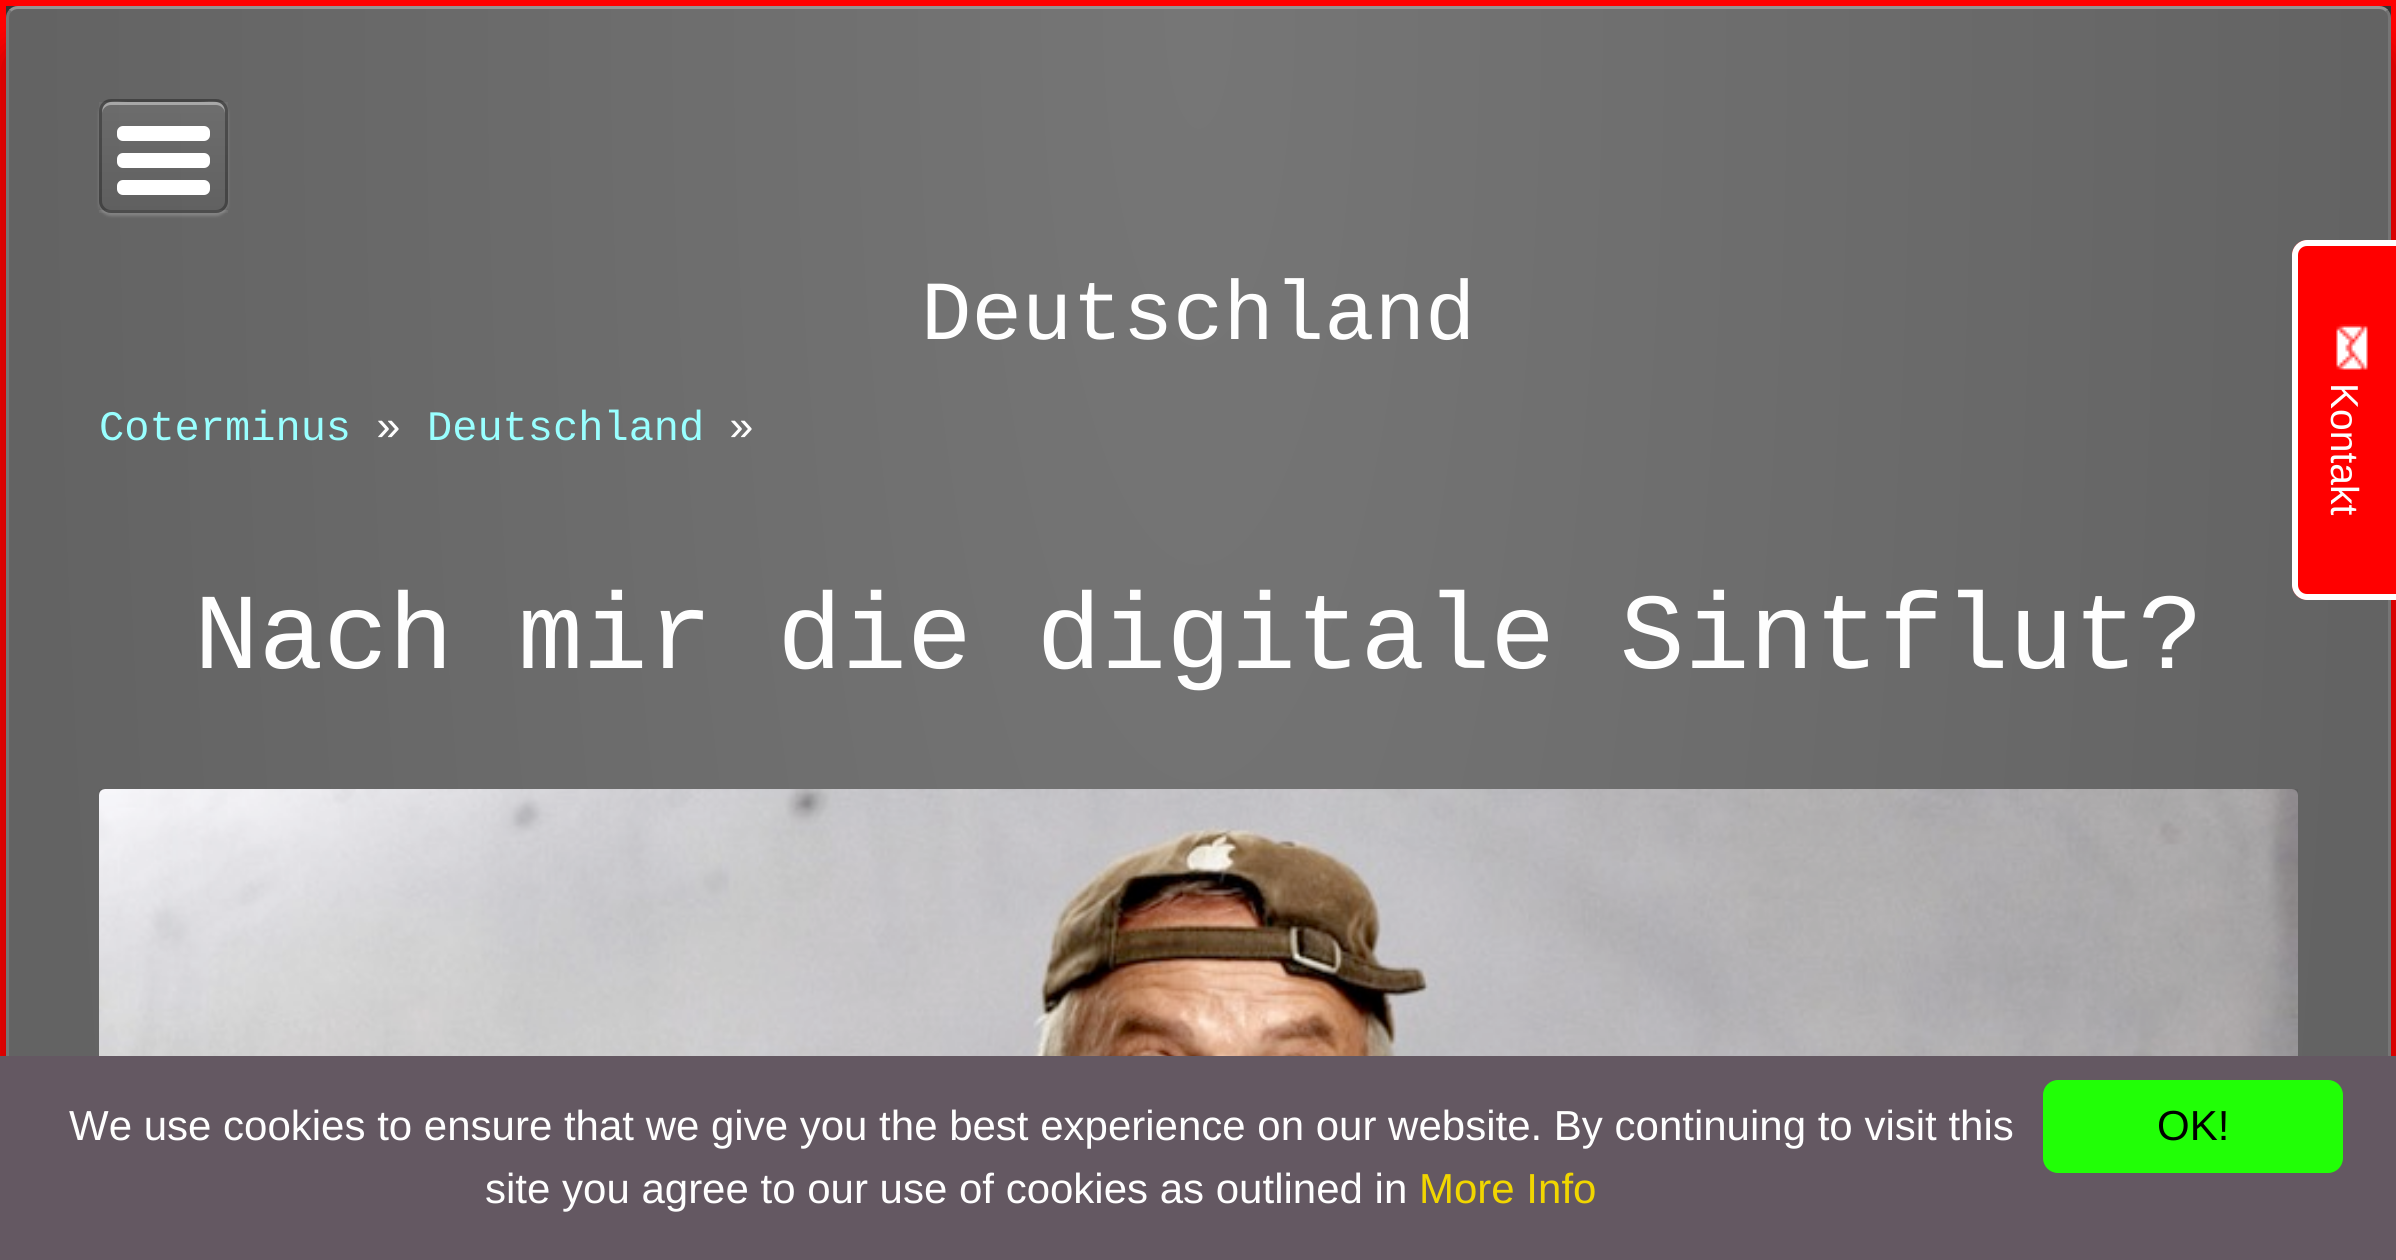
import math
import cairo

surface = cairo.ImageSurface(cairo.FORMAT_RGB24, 2396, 1260)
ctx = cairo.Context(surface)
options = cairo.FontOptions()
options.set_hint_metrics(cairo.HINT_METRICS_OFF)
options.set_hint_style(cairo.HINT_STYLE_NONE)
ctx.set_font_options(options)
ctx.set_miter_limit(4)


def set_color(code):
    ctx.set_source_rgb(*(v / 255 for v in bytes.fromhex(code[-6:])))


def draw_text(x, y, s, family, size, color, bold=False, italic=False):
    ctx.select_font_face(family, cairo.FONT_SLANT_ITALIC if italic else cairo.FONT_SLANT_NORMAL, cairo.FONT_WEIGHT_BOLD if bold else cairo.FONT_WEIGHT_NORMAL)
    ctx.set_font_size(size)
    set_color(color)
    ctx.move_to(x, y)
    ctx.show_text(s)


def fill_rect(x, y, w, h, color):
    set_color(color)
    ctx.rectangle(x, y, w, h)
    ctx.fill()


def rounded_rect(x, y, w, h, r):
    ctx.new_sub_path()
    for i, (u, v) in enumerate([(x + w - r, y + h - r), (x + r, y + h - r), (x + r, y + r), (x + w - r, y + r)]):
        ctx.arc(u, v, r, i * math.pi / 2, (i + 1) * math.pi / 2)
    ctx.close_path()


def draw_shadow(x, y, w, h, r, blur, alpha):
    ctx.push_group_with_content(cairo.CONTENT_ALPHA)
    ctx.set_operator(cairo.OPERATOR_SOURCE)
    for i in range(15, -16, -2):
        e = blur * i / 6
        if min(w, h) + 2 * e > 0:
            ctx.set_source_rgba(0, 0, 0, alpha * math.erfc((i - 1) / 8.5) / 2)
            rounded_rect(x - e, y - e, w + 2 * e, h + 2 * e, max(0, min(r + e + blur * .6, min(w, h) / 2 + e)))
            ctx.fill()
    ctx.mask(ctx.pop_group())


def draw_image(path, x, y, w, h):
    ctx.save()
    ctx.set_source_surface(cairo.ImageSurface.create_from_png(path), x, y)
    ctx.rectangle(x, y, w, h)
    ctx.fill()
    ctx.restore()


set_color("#333333")
ctx.paint()
ctx.rectangle(3, 3, 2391, 1254)
set_color("#ff0000")
ctx.set_line_width(6)
ctx.stroke()
set_color("#000000")
draw_shadow(3, 48, 2391, 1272, 15, 15, 0.3)
set_color("#666666")
rounded_rect(6, 6, 2385, 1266, 12)
ctx.fill()
gradient = cairo.RadialGradient(0, 0, 0, 0, 0, 1)
gradient.set_matrix(cairo.Matrix(1 / 1682, 0, 0, 1 / 5914, -1 * 1199 / 1682, -1 * 9 / 5914))
gradient.add_color_stop_rgba(0, 0.463, 0.463, 0.463, 1)
gradient.add_color_stop_rgba(0.7, 0.388, 0.388, 0.388, 1)
ctx.set_source(gradient)
ctx.rectangle(9, 9, 2379, 1047)
ctx.fill()
ctx.new_path()
ctx.move_to(10.5, 10.5)
ctx.curve_to(12.5, 8.5, 15, 7.5, 18, 7.5)
ctx.line_to(2379, 7.5)
ctx.curve_to(2382, 7.5, 2384.5, 8.5, 2386.5, 10.5)
ctx.set_source_rgba(1, 1, 1, 0.3)
ctx.set_line_width(3)
ctx.stroke()
ctx.new_path()
ctx.move_to(2386.5, 10.5)
ctx.curve_to(2388.5, 12.5, 2389.5, 15, 2389.5, 18)
ctx.line_to(2389.5, 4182)
ctx.curve_to(2389.5, 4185, 2388.5, 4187.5, 2386.5, 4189.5)
ctx.curve_to(2384.5, 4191.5, 2382, 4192.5, 2379, 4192.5)
ctx.line_to(18, 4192.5)
ctx.curve_to(15, 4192.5, 12.5, 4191.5, 10.5, 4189.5)
ctx.curve_to(8.5, 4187.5, 7.5, 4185, 7.5, 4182)
ctx.line_to(7.5, 18)
ctx.curve_to(7.5, 15, 8.5, 12.5, 10.5, 10.5)
ctx.set_source_rgba(1, 1, 1, 0.1)
ctx.stroke()
ctx.save()
ctx.set_fill_rule(cairo.FILL_RULE_EVEN_ODD)
ctx.new_path()
ctx.move_to(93, 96)
ctx.line_to(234, 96)
ctx.line_to(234, 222)
ctx.line_to(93, 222)
ctx.close_path()
ctx.move_to(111, 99)
ctx.line_to(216, 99)
ctx.curve_to(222.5, 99, 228, 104.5, 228, 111)
ctx.line_to(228, 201)
ctx.curve_to(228, 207.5, 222.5, 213, 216, 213)
ctx.line_to(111, 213)
ctx.curve_to(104.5, 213, 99, 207.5, 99, 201)
ctx.line_to(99, 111)
ctx.curve_to(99, 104.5, 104.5, 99, 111, 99)
ctx.close_path()
ctx.clip()
set_color("#ffffff")
draw_shadow(99, 102, 129, 114, 12, 1.5, 0.2)
ctx.restore()
ctx.save()
rounded_rect(99, 99, 129, 114, 12)
ctx.clip()
gradient = cairo.LinearGradient(164, -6, 164, 102)
gradient.add_color_stop_rgba(0, 0.427, 0.427, 0.427, 1)
gradient.add_color_stop_rgba(1, 0.376, 0.376, 0.376, 1)
ctx.set_source(gradient)
ctx.rectangle(99, 99, 129, 3)
ctx.fill()
ctx.restore()
gradient = cairo.LinearGradient(164, 102, 164, 210)
gradient.add_color_stop_rgba(0, 1, 1, 1, 0.05)
gradient.add_color_stop_rgba(1, 0, 0, 0, 0.05)
ctx.set_source(gradient)
ctx.rectangle(99, 102, 129, 108)
ctx.fill()
gradient = cairo.LinearGradient(164, 210, 164, 318)
gradient.add_color_stop_rgba(0, 1, 1, 1, 0.05)
gradient.add_color_stop_rgba(1, 0, 0, 0, 0.05)
ctx.set_source(gradient)
ctx.rectangle(99, 210, 129, 3)
ctx.fill()
ctx.set_source_rgba(1, 1, 1, 0.4)
ctx.new_path()
ctx.move_to(111, 105)
ctx.line_to(216, 105)
ctx.curve_to(221, 105, 225, 109, 225, 114)
ctx.curve_to(225, 98, 212, 102, 198, 102)
ctx.line_to(128, 102)
ctx.curve_to(115, 102, 102, 98, 102, 114)
ctx.curve_to(102, 109, 106, 105, 111, 105)
ctx.close_path()
ctx.fill()
rounded_rect(100.5, 100.5, 126, 111, 10.5)
ctx.set_source_rgba(0, 0, 0, 0.3)
ctx.stroke()
set_color("#ffffff")
rounded_rect(117, 126, 93, 15, 6)
ctx.fill()
rounded_rect(117, 153, 93, 15, 6)
ctx.fill()
rounded_rect(117, 180, 93, 15, 6)
ctx.fill()
draw_text(921, 339, "Deutschland", "Liberation Mono", 84, "#fefefe")
draw_text(99, 440, "Coterminus", "Liberation Mono", 42, "#99ffff")
draw_text(376, 440, "»", "Liberation Mono", 42, "#fefefe")
draw_text(427, 440, "Deutschland", "Liberation Mono", 42, "#99ffff")
draw_text(729, 440, "»", "Liberation Mono", 42, "#fefefe")
draw_text(194, 668, "Nach mir die digitale Sintflut?", "Liberation Mono", 108, "#fefefe")
ctx.save()
ctx.rectangle(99, 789, 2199, 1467)
ctx.clip()
set_color("#000000")
draw_shadow(99, 792, 2199, 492, 6, 6, 0.3)
ctx.restore()
draw_image("assets/img1.png", 99, 789, 2199, 267)
set_color("#ff0000")
ctx.new_path()
ctx.move_to(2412, 240)
ctx.line_to(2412, 600)
ctx.line_to(2307, 600)
ctx.curve_to(2299, 600, 2292, 593, 2292, 585)
ctx.line_to(2292, 255)
ctx.curve_to(2292, 247, 2299, 240, 2307, 240)
ctx.close_path()
ctx.fill()
set_color("#ffffff")
ctx.set_fill_rule(cairo.FILL_RULE_EVEN_ODD)
ctx.new_path()
ctx.move_to(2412, 240)
ctx.line_to(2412, 600)
ctx.line_to(2307, 600)
ctx.curve_to(2299, 600, 2292, 593, 2292, 585)
ctx.line_to(2292, 255)
ctx.curve_to(2292, 247, 2299, 240, 2307, 240)
ctx.close_path()
ctx.move_to(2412, 246)
ctx.line_to(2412, 594)
ctx.line_to(2307, 594)
ctx.curve_to(2302, 594, 2298, 590, 2298, 585)
ctx.line_to(2298, 255)
ctx.curve_to(2298, 250, 2302, 246, 2307, 246)
ctx.close_path()
ctx.fill()
draw_image("assets/img2.png", 2336, 324, 32, 46)
ctx.save()
ctx.translate(2331, 383)
ctx.rotate(90 * math.pi / 180)
draw_text(0, 0, "Kontakt", "Liberation Sans", 39, "#fefefe")
ctx.restore()
fill_rect(0, 1056, 2396, 204, "#645862")
draw_text(69, 1140, "We use cookies to ensure that we give you the best experience on our website. By continuing to visit this", "Liberation Sans", 42, "#fefefe")
draw_text(485, 1203, "site you agree to our use of cookies as outlined in", "Liberation Sans", 42, "#fefefe")
draw_text(1419, 1203, "More Info", "Liberation Sans", 42, "#f1d600")
set_color("#21ff06")
rounded_rect(2043, 1080, 300, 93, 15)
ctx.fill()
draw_text(2157, 1140, "OK!", "Liberation Sans", 42, "#000000")
surface.write_to_png("output.png")
